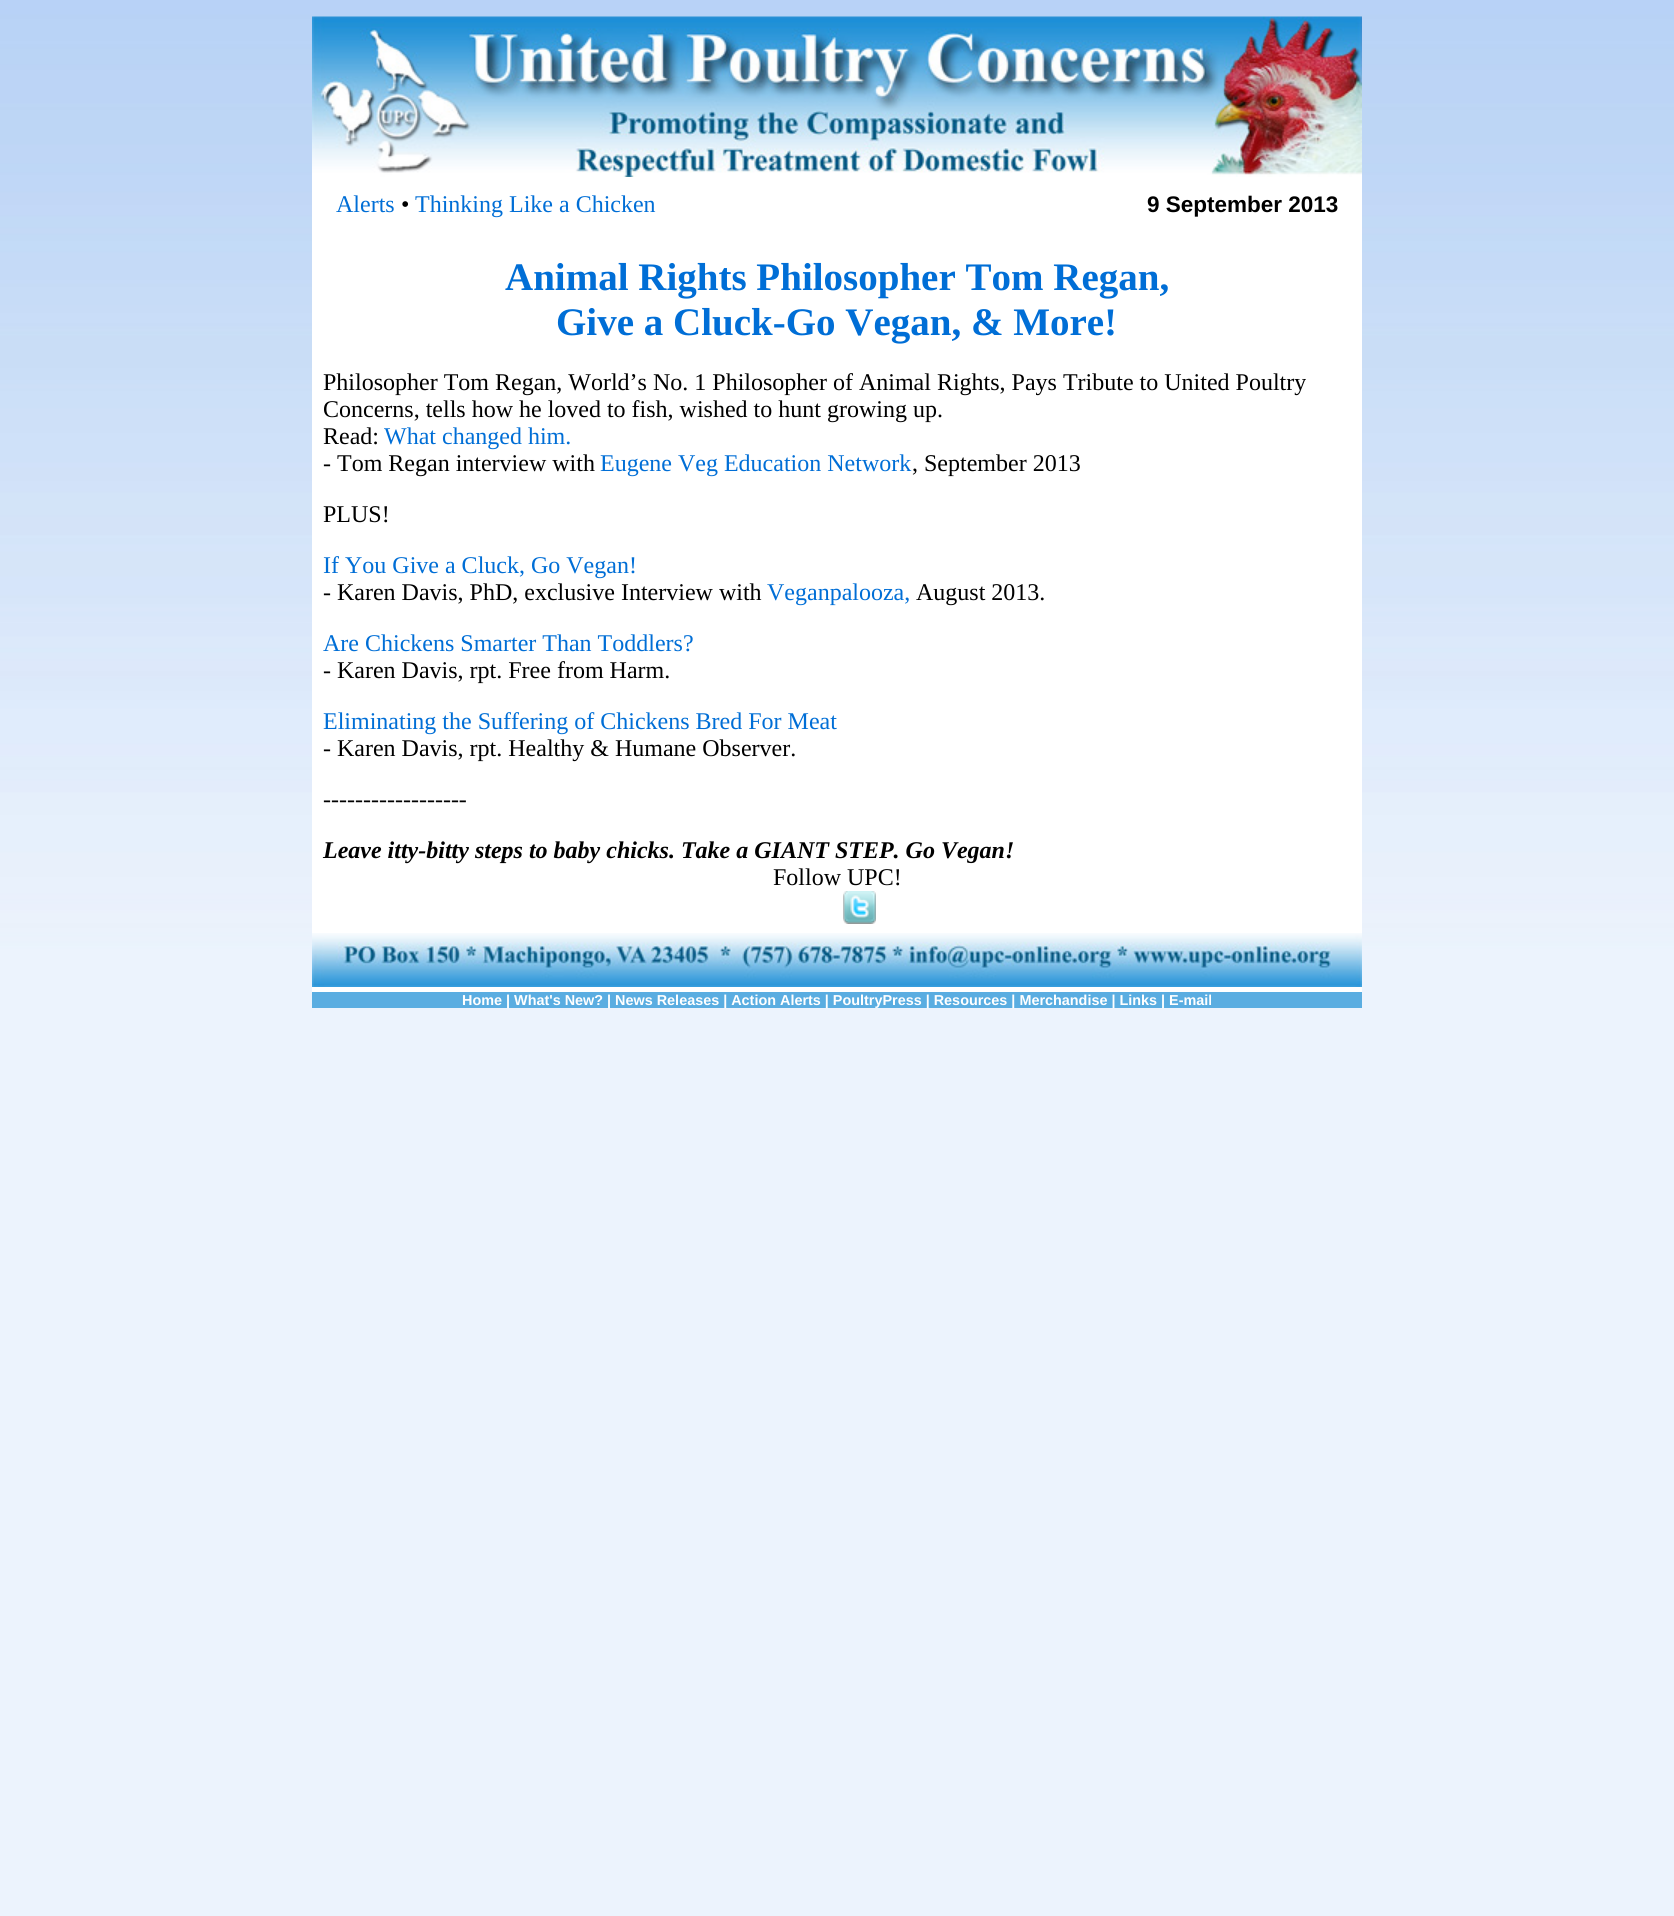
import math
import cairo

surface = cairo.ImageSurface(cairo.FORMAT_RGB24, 1674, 1916)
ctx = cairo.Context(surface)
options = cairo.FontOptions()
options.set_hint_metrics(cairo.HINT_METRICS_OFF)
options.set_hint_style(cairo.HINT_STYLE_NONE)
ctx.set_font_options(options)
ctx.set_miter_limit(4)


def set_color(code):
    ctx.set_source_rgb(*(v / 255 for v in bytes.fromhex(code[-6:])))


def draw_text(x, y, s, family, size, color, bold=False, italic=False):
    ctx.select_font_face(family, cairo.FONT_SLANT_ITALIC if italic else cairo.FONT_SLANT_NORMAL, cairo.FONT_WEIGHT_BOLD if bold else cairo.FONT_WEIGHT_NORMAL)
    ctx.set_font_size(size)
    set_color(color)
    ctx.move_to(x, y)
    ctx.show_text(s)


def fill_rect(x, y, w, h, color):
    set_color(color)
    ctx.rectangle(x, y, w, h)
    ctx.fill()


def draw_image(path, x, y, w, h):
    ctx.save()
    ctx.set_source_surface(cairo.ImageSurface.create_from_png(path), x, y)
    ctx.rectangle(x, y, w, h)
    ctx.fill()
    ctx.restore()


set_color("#ffffff")
ctx.paint()
draw_image("assets/img1.png", 0, 0, 1674, 1916)
fill_rect(312, 177, 1050, 815, "#ffffff")
draw_image("assets/img2.png", 312, 16, 1050, 161)
draw_text(336, 212, "Alerts", "Liberation Serif", 24, "#006ed6")
draw_text(401, 212, "•", "Liberation Serif", 24, "#000000")
draw_text(415, 212, "Thinking Like a Chicken", "Liberation Serif", 24, "#006ed6")
draw_text(1147, 212, "9 September 2013", "Liberation Sans", 22.5, "#000000", bold=True)
draw_text(505, 290, "Animal Rights Philosopher Tom Regan,", "Liberation Serif", 39, "#006ed6", bold=True)
draw_text(556, 335, "Give a Cluck-Go Vegan, & More!", "Liberation Serif", 39, "#006ed6", bold=True)
draw_text(323, 390, "Philosopher Tom Regan, World’s No. 1 Philosopher of Animal Rights, Pays Tribute to United Poultry", "Liberation Serif", 24, "#000000")
draw_text(323, 417, "Concerns, tells how he loved to fish, wished to hunt growing up.", "Liberation Serif", 24, "#000000")
draw_text(323, 444, "Read:", "Liberation Serif", 24, "#000000")
draw_text(384, 444, "What changed him.", "Liberation Serif", 24, "#006ed6")
draw_text(323, 471, "- Tom Regan interview with", "Liberation Serif", 24, "#000000")
draw_text(600, 471, "Eugene Veg Education Network", "Liberation Serif", 24, "#006ed6")
draw_text(912, 471, ", September 2013", "Liberation Serif", 24, "#000000")
draw_text(323, 522, "PLUS!", "Liberation Serif", 24, "#000000")
draw_text(323, 573, "If You Give a Cluck, Go Vegan!", "Liberation Serif", 24, "#006ed6")
draw_text(323, 600, "- Karen Davis, PhD, exclusive Interview with", "Liberation Serif", 24, "#000000")
draw_text(767, 600, "Veganpalooza,", "Liberation Serif", 24, "#006ed6")
draw_text(916, 600, "August 2013.", "Liberation Serif", 24, "#000000")
draw_text(323, 651, "Are Chickens Smarter Than Toddlers?", "Liberation Serif", 24, "#006ed6")
draw_text(323, 678, "- Karen Davis, rpt. Free from Harm.", "Liberation Serif", 24, "#000000")
draw_text(323, 729, "Eliminating the Suffering of Chickens Bred For Meat", "Liberation Serif", 24, "#006ed6")
draw_text(323, 756, "- Karen Davis, rpt. Healthy & Humane Observer.", "Liberation Serif", 24, "#000000")
draw_text(323, 807, "------------------", "Liberation Serif", 24, "#000000")
draw_text(323, 858, "Leave itty-bitty steps to baby chicks. Take a GIANT STEP. Go Vegan!", "Liberation Serif", 24, "#000000", bold=True, italic=True)
draw_text(773, 885, "Follow UPC!", "Liberation Serif", 24, "#000000")
draw_image("assets/img3.png", 843, 891, 33, 33)
draw_image("assets/img4.png", 312, 933, 1050, 54)
fill_rect(312, 992, 1050, 16, "#5aade1")
draw_text(462, 1005, "Home | What's New? | News Releases | Action Alerts | PoultryPress | Resources | Merchandise | Links | E-mail", "Liberation Sans", 14.4, "#ffffff", bold=True)
surface.write_to_png("output.png")
